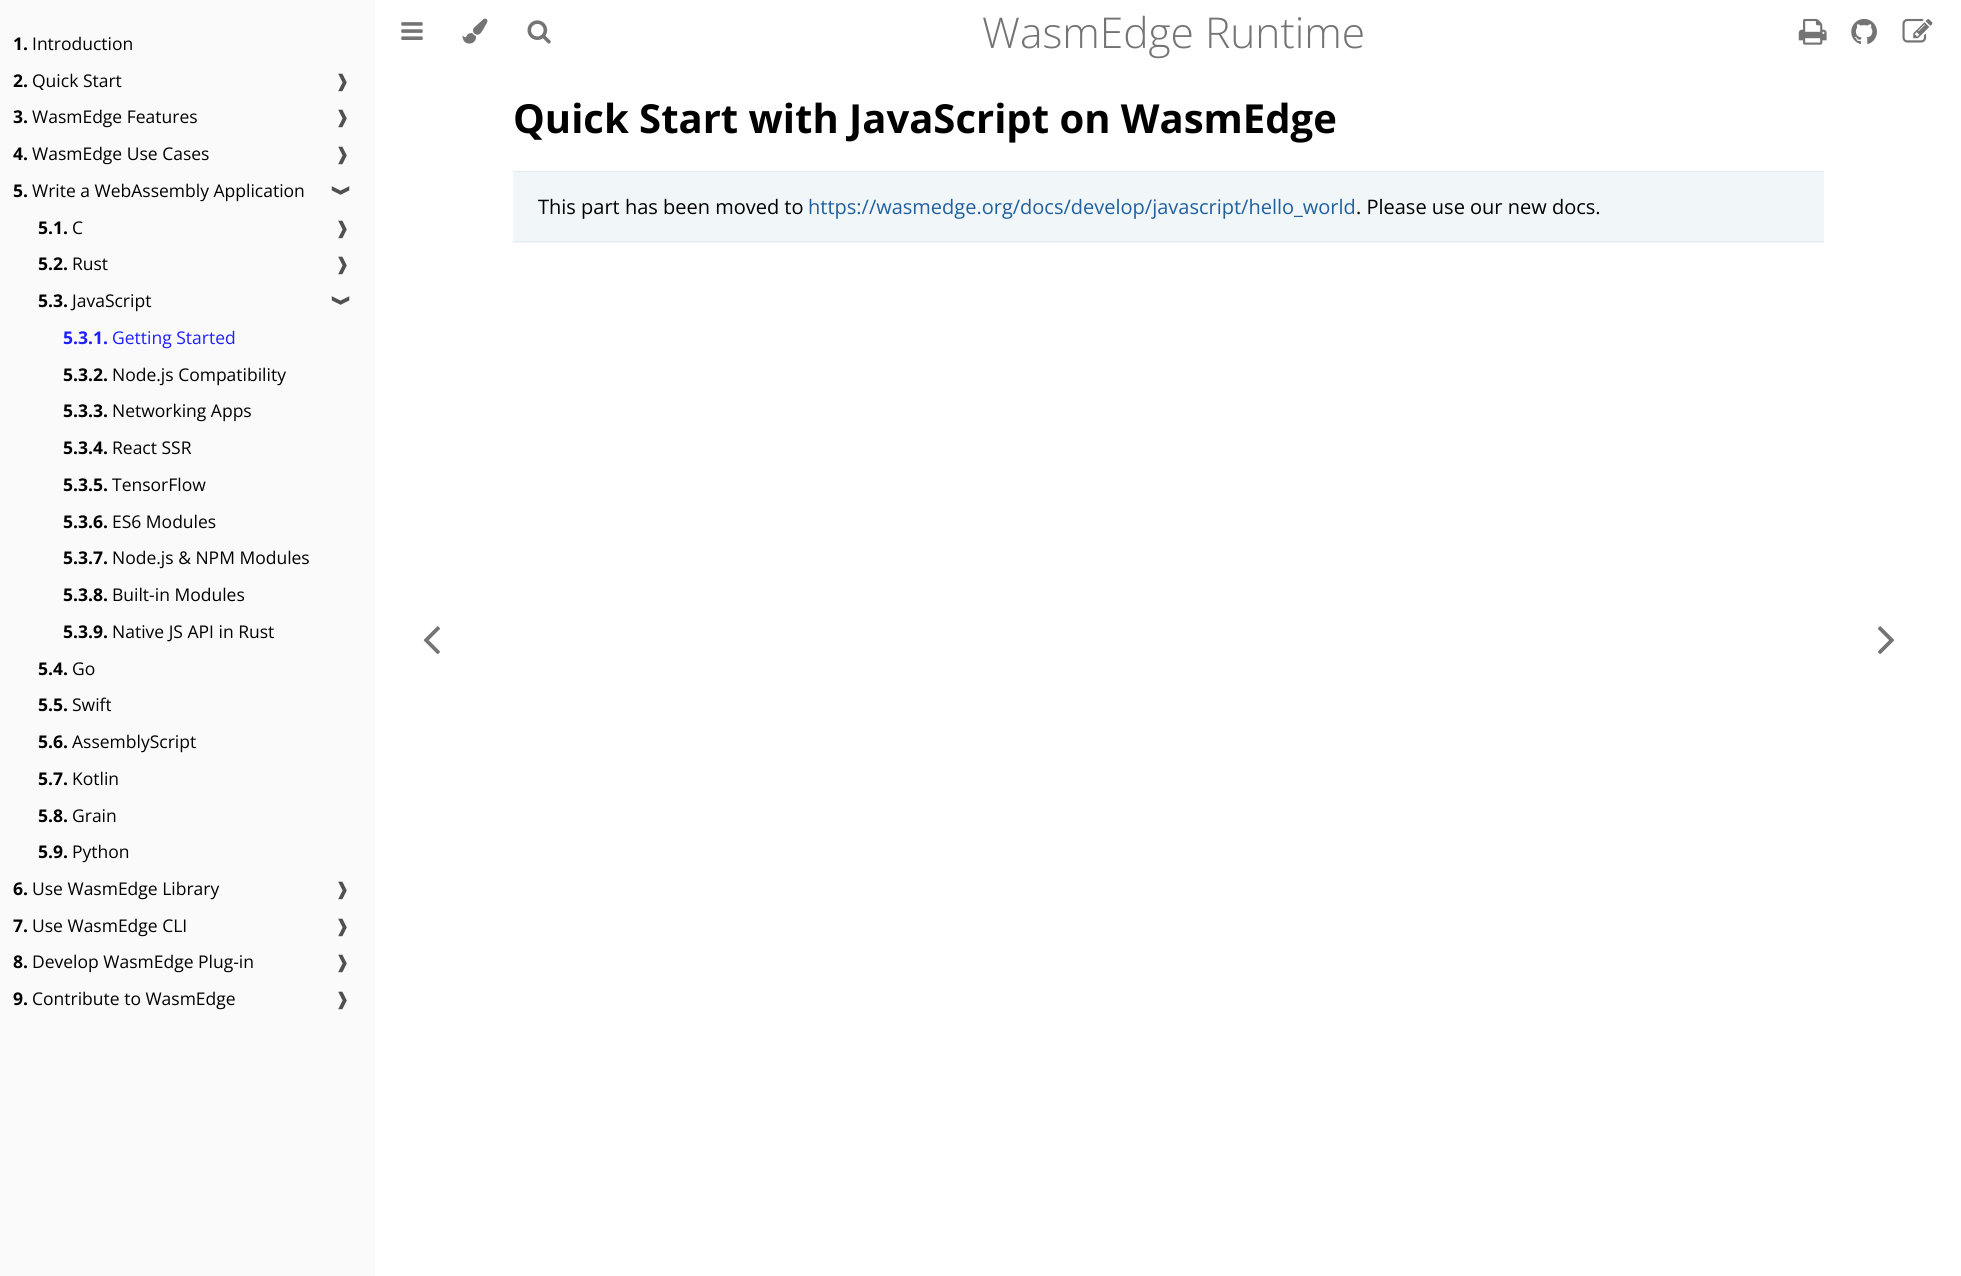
import math
import cairo

surface = cairo.ImageSurface(cairo.FORMAT_RGB24, 1961, 1276)
ctx = cairo.Context(surface)
options = cairo.FontOptions()
options.set_hint_metrics(cairo.HINT_METRICS_OFF)
options.set_hint_style(cairo.HINT_STYLE_NONE)
ctx.set_font_options(options)
ctx.set_miter_limit(4)


def set_color(code):
    ctx.set_source_rgb(*(v / 255 for v in bytes.fromhex(code[-6:])))


def draw_text(x, y, s, family, size, color, bold=False, italic=False):
    ctx.select_font_face(family, cairo.FONT_SLANT_ITALIC if italic else cairo.FONT_SLANT_NORMAL, cairo.FONT_WEIGHT_BOLD if bold else cairo.FONT_WEIGHT_NORMAL)
    ctx.set_font_size(size)
    set_color(color)
    ctx.move_to(x, y)
    ctx.show_text(s)


def fill_rect(x, y, w, h, color):
    set_color(color)
    ctx.rectangle(x, y, w, h)
    ctx.fill()


def draw_image(path, x, y, w, h):
    ctx.save()
    ctx.set_source_surface(cairo.ImageSurface.create_from_png(path), x, y)
    ctx.rectangle(x, y, w, h)
    ctx.fill()
    ctx.restore()


set_color("#ffffff")
ctx.paint()
fill_rect(0, 0, 375, 1276, "#fafafa")
draw_text(13, 50, "1.", "Open Sans", 17.5, "#000000", bold=True)
draw_text(32, 50, "Introduction", "Open Sans", 17.5, "#000000")
draw_text(13, 87, "2.", "Open Sans", 17.5, "#000000", bold=True)
draw_text(32, 87, "Quick Start", "Open Sans", 17.5, "#000000")
draw_text(335, 87, "❱", "DejaVu Sans", 17.5, "#505050")
draw_text(13, 123, "3.", "Open Sans", 17.5, "#000000", bold=True)
draw_text(32, 123, "WasmEdge Features", "Open Sans", 17.5, "#000000")
draw_text(335, 123, "❱", "DejaVu Sans", 17.5, "#505050")
draw_text(13, 160, "4.", "Open Sans", 17.5, "#000000", bold=True)
draw_text(32, 160, "WasmEdge Use Cases", "Open Sans", 17.5, "#000000")
draw_text(335, 160, "❱", "DejaVu Sans", 17.5, "#505050")
draw_text(13, 197, "5.", "Open Sans", 17.5, "#000000", bold=True)
draw_text(32, 197, "Write a WebAssembly Application", "Open Sans", 17.5, "#000000")
ctx.save()
ctx.translate(336, 183)
ctx.rotate(90 * math.pi / 180)
draw_text(0, 0, "❱", "DejaVu Sans", 17.5, "#505050")
ctx.restore()
draw_text(38, 234, "5.1.", "Open Sans", 17.5, "#000000", bold=True)
draw_text(72, 234, "C", "Open Sans", 17.5, "#000000")
draw_text(335, 234, "❱", "DejaVu Sans", 17.5, "#505050")
draw_text(38, 270, "5.2.", "Open Sans", 17.5, "#000000", bold=True)
draw_text(72, 270, "Rust", "Open Sans", 17.5, "#000000")
draw_text(335, 270, "❱", "DejaVu Sans", 17.5, "#505050")
draw_text(38, 307, "5.3.", "Open Sans", 17.5, "#000000", bold=True)
draw_text(72, 307, "JavaScript", "Open Sans", 17.5, "#000000")
ctx.save()
ctx.translate(336, 293)
ctx.rotate(90 * math.pi / 180)
draw_text(0, 0, "❱", "DejaVu Sans", 17.5, "#505050")
ctx.restore()
draw_text(63, 344, "5.3.1.", "Open Sans", 17.5, "#1f1fff", bold=True)
draw_text(112, 344, "Getting Started", "Open Sans", 17.5, "#1f1fff")
draw_text(63, 381, "5.3.2.", "Open Sans", 17.5, "#000000", bold=True)
draw_text(112, 381, "Node.js Compatibility", "Open Sans", 17.5, "#000000")
draw_text(63, 417, "5.3.3.", "Open Sans", 17.5, "#000000", bold=True)
draw_text(112, 417, "Networking Apps", "Open Sans", 17.5, "#000000")
draw_text(63, 454, "5.3.4.", "Open Sans", 17.5, "#000000", bold=True)
draw_text(112, 454, "React SSR", "Open Sans", 17.5, "#000000")
draw_text(63, 491, "5.3.5.", "Open Sans", 17.5, "#000000", bold=True)
draw_text(112, 491, "TensorFlow", "Open Sans", 17.5, "#000000")
draw_text(63, 528, "5.3.6.", "Open Sans", 17.5, "#000000", bold=True)
draw_text(112, 528, "ES6 Modules", "Open Sans", 17.5, "#000000")
draw_text(63, 564, "5.3.7.", "Open Sans", 17.5, "#000000", bold=True)
draw_text(112, 564, "Node.js & NPM Modules", "Open Sans", 17.5, "#000000")
draw_text(63, 601, "5.3.8.", "Open Sans", 17.5, "#000000", bold=True)
draw_text(112, 601, "Built-in Modules", "Open Sans", 17.5, "#000000")
draw_text(63, 638, "5.3.9.", "Open Sans", 17.5, "#000000", bold=True)
draw_text(112, 638, "Native JS API in Rust", "Open Sans", 17.5, "#000000")
draw_text(38, 675, "5.4.", "Open Sans", 17.5, "#000000", bold=True)
draw_text(72, 675, "Go", "Open Sans", 17.5, "#000000")
draw_text(38, 711, "5.5.", "Open Sans", 17.5, "#000000", bold=True)
draw_text(72, 711, "Swift", "Open Sans", 17.5, "#000000")
draw_text(38, 748, "5.6.", "Open Sans", 17.5, "#000000", bold=True)
draw_text(72, 748, "AssemblyScript", "Open Sans", 17.5, "#000000")
draw_text(38, 785, "5.7.", "Open Sans", 17.5, "#000000", bold=True)
draw_text(72, 785, "Kotlin", "Open Sans", 17.5, "#000000")
draw_text(38, 822, "5.8.", "Open Sans", 17.5, "#000000", bold=True)
draw_text(72, 822, "Grain", "Open Sans", 17.5, "#000000")
draw_text(38, 858, "5.9.", "Open Sans", 17.5, "#000000", bold=True)
draw_text(72, 858, "Python", "Open Sans", 17.5, "#000000")
draw_text(13, 895, "6.", "Open Sans", 17.5, "#000000", bold=True)
draw_text(32, 895, "Use WasmEdge Library", "Open Sans", 17.5, "#000000")
draw_text(335, 895, "❱", "DejaVu Sans", 17.5, "#505050")
draw_text(13, 932, "7.", "Open Sans", 17.5, "#000000", bold=True)
draw_text(32, 932, "Use WasmEdge CLI", "Open Sans", 17.5, "#000000")
draw_text(335, 932, "❱", "DejaVu Sans", 17.5, "#505050")
draw_text(13, 968, "8.", "Open Sans", 17.5, "#000000", bold=True)
draw_text(32, 968, "Develop WasmEdge Plug-in", "Open Sans", 17.5, "#000000")
draw_text(335, 968, "❱", "DejaVu Sans", 17.5, "#505050")
draw_text(13, 1005, "9.", "Open Sans", 17.5, "#000000", bold=True)
draw_text(32, 1005, "Contribute to WasmEdge", "Open Sans", 17.5, "#000000")
draw_text(335, 1005, "❱", "DejaVu Sans", 17.5, "#505050")
draw_image("assets/img1.png", 401, 22, 22, 18)
draw_image("assets/img2.png", 462, 18, 26, 26)
draw_image("assets/img3.png", 527, 20, 24, 24)
draw_text(982, 48, "WasmEdge Runtime", "Open Sans Light", 42.5, "#747474")
draw_image("assets/img4.png", 1798, 18, 29, 27)
draw_image("assets/img5.png", 1851, 18, 26, 26)
draw_image("assets/img6.png", 1902, 18, 31, 25)
draw_text(513, 133, "Quick Start with JavaScript on WasmEdge", "Open Sans", 40, "#000000", bold=True)
fill_rect(513, 172, 1311, 71, "#f1f6f9")
fill_rect(513, 171, 1311, 1, "#e0ecf1")
fill_rect(513, 241, 1311, 1, "#e0ecf1")
draw_text(538, 214, "This part has been moved to", "Open Sans", 20, "#000000")
draw_text(808, 214, "https://wasmedge.org/docs/develop/javascript/hello_world", "Open Sans", 20, "#20609f")
draw_text(1356, 214, ". Please use our new docs.", "Open Sans", 20, "#000000")
draw_image("assets/img7.png", 423, 626, 17, 28)
draw_image("assets/img8.png", 1877, 626, 17, 28)
surface.write_to_png("output.png")
